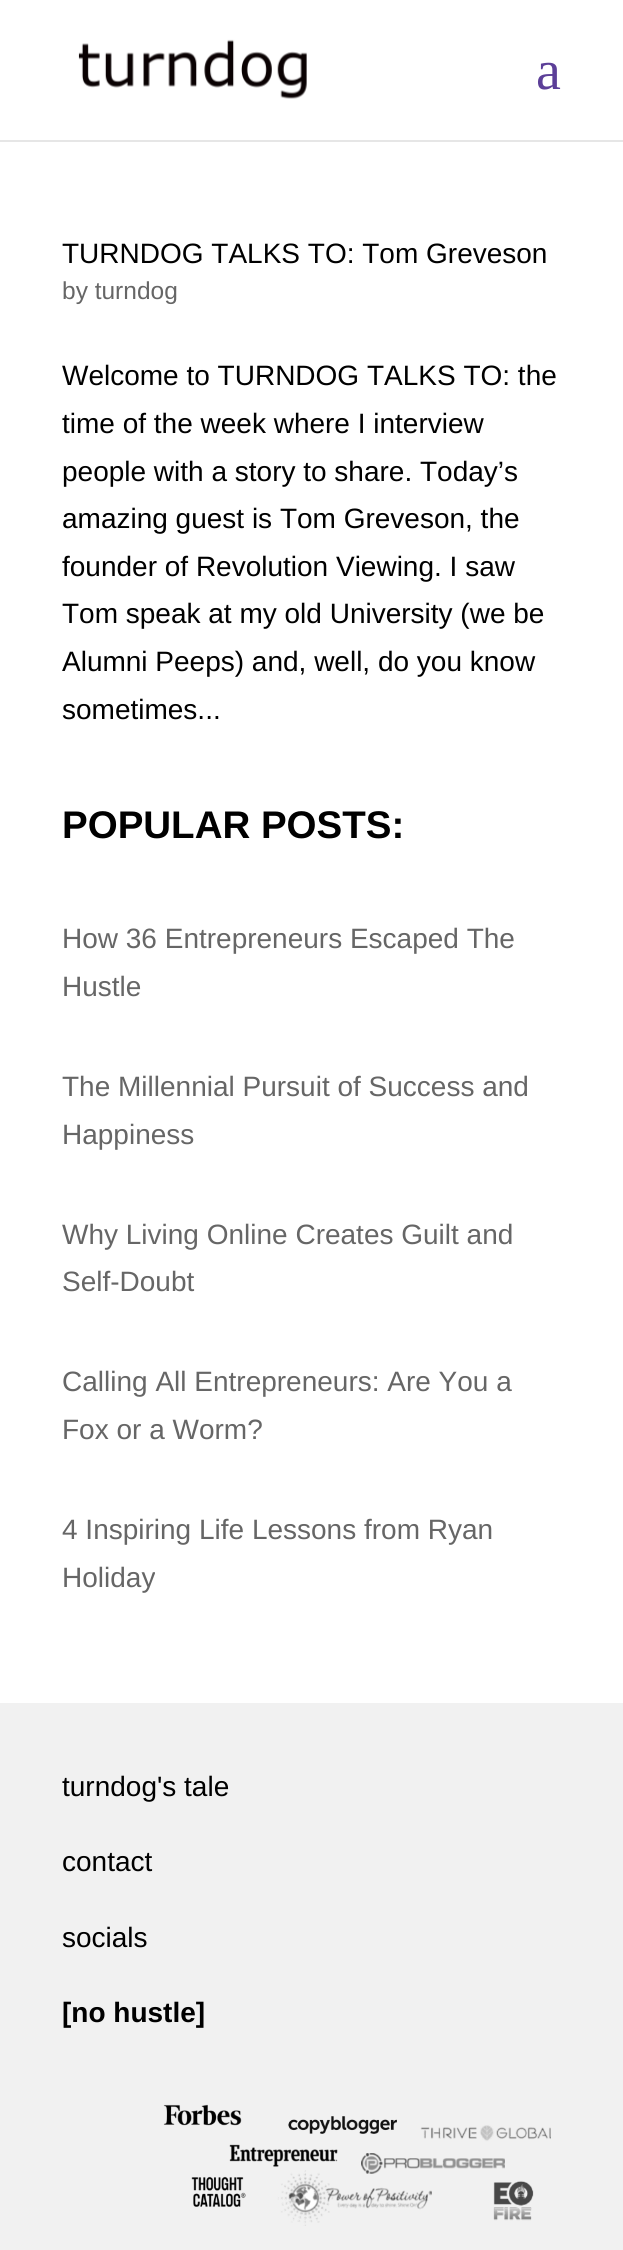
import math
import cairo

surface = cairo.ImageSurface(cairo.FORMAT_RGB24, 623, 2250)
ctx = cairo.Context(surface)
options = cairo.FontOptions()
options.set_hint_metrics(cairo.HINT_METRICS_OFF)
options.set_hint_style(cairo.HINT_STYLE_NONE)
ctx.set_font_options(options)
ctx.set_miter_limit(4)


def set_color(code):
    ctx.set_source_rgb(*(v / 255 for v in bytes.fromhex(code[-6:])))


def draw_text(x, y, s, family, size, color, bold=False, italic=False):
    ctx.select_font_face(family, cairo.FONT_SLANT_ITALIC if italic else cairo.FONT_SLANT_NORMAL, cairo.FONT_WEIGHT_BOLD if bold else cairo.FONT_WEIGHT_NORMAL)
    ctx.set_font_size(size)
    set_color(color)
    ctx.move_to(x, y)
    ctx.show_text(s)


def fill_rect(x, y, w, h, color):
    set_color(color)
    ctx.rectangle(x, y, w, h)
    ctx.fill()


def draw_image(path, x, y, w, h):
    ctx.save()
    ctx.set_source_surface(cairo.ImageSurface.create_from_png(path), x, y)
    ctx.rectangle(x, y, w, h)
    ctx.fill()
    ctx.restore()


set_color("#ffffff")
ctx.paint()
fill_rect(0, 140, 623, 2, "#e6e6e6")
draw_image("assets/img1.png", 78, 39, 229, 60)
draw_text(536, 89, "a", "Liberation Serif", 56, "#5c3f98")
draw_text(62, 263, "TURNDOG TALKS TO: Tom Greveson", "Liberation Sans", 28, "#000000")
draw_text(62, 299, "by turndog", "Liberation Sans", 24.5, "#666666")
draw_text(62, 385, "Welcome to TURNDOG TALKS TO: the", "Liberation Sans", 28, "#000000")
draw_text(62, 433, "time of the week where I interview", "Liberation Sans", 28, "#000000")
draw_text(62, 481, "people with a story to share. Today’s", "Liberation Sans", 28, "#000000")
draw_text(62, 528, "amazing guest is Tom Greveson, the", "Liberation Sans", 28, "#000000")
draw_text(62, 576, "founder of Revolution Viewing. I saw", "Liberation Sans", 28, "#000000")
draw_text(62, 623, "Tom speak at my old University (we be", "Liberation Sans", 28, "#000000")
draw_text(62, 671, "Alumni Peeps) and, well, do you know", "Liberation Sans", 28, "#000000")
draw_text(62, 719, "sometimes...", "Liberation Sans", 28, "#000000")
draw_text(62, 838, "POPULAR POSTS:", "Liberation Sans", 38.5, "#000000", bold=True)
draw_text(62, 948, "How 36 Entrepreneurs Escaped The", "Liberation Sans", 28, "#666666")
draw_text(62, 996, "Hustle", "Liberation Sans", 28, "#666666")
draw_text(62, 1096, "The Millennial Pursuit of Success and", "Liberation Sans", 28, "#666666")
draw_text(62, 1144, "Happiness", "Liberation Sans", 28, "#666666")
draw_text(62, 1244, "Why Living Online Creates Guilt and", "Liberation Sans", 28, "#666666")
draw_text(62, 1291, "Self-Doubt", "Liberation Sans", 28, "#666666")
draw_text(62, 1391, "Calling All Entrepreneurs: Are You a", "Liberation Sans", 28, "#666666")
draw_text(62, 1439, "Fox or a Worm?", "Liberation Sans", 28, "#666666")
draw_text(62, 1539, "4 Inspiring Life Lessons from Ryan", "Liberation Sans", 28, "#666666")
draw_text(62, 1587, "Holiday", "Liberation Sans", 28, "#666666")
fill_rect(0, 1703, 623, 547, "#f1f1f1")
draw_text(62, 1796, "turndog's tale", "Liberation Sans", 28, "#000000")
draw_text(62, 1871, "contact", "Liberation Sans", 28, "#000000")
draw_text(62, 1947, "socials", "Liberation Sans", 28, "#000000")
draw_text(62, 2022, "[no hustle]", "Liberation Sans", 28, "#000000", bold=True)
draw_image("assets/img2.png", 163, 2104, 388, 122)
surface.write_to_png("output.png")
